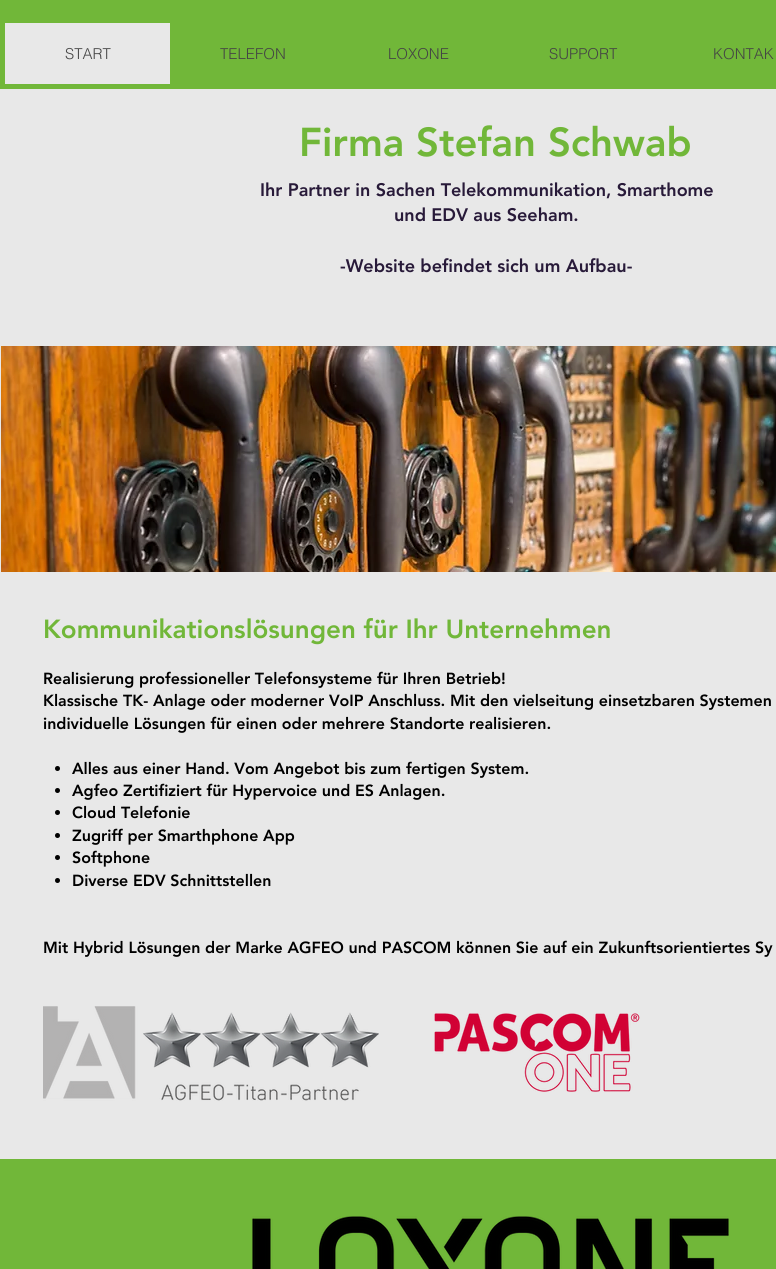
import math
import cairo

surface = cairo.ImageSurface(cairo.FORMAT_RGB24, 776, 1269)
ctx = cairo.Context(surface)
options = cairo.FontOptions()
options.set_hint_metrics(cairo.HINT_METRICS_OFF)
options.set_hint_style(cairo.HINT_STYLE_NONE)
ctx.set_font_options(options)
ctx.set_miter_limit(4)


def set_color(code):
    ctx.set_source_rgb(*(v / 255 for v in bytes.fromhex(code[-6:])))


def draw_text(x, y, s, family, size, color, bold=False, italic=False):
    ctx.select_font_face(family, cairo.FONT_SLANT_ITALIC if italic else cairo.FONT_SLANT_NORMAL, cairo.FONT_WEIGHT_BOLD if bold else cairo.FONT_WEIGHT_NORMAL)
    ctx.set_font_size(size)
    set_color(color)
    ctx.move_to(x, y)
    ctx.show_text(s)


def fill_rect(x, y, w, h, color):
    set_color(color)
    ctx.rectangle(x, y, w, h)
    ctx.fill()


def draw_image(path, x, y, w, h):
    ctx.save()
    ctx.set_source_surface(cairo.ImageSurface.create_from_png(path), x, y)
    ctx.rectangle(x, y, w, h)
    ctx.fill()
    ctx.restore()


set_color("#e8e8e8")
ctx.paint()
fill_rect(0, 0, 776, 89, "#71b739")
fill_rect(5, 23, 165, 61, "#e8e8e8")
draw_text(65, 59, "START", "helvetica Light", 15, "#444444")
draw_text(220, 59, "TELEFON", "helvetica Light", 15, "#444444")
draw_text(388, 59, "LOXONE", "helvetica Light", 15, "#444444")
draw_text(549, 59, "SUPPORT", "helvetica Light", 15, "#444444")
draw_text(713, 59, "KONTAK", "helvetica Light", 15, "#444444")
draw_text(299, 156, "Firma Stefan Schwab", "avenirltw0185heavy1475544 Black", 40, "#71b739")
draw_text(260, 196, "Ihr Partner in Sachen Telekommunikation, Smarthome", "avenirltw0185heavy1475544 Black", 18, "#281a39")
draw_text(394, 221, "und EDV aus Seeham.", "avenirltw0185heavy1475544 Black", 18, "#281a39")
draw_text(340, 272, "-Website befindet sich um Aufbau-", "avenirltw0185heavy1475544 Black", 18, "#281a39")
draw_image("assets/img1.png", 1, 346, 775, 226)
draw_text(43, 638, "Kommunikationslösungen für Ihr Unternehmen", "avenirltw0185heavy1475544 Black", 26, "#71b739")
draw_text(43, 684, "Realisierung professioneller Telefonsysteme für Ihren Betrieb!", "avenirltw0185heavy1475544 Black", 16, "#000000")
draw_text(43, 706, "Klassische TK- Anlage oder moderner VoIP Anschluss. Mit den vielseitung einsetzbaren Systemen", "avenirltw0185heavy1475544 Black", 16, "#000000")
draw_text(43, 729, "individuelle Lösungen für einen oder mehrere Standorte realisieren.", "avenirltw0185heavy1475544 Black", 16, "#000000")
ctx.new_path()
ctx.arc(57.5, 768.5, 2.5, 0, 2 * math.pi)
ctx.fill()
draw_text(72, 774, "Alles aus einer Hand. Vom Angebot bis zum fertigen System.", "avenirltw0185heavy1475544 Black", 16, "#000000")
ctx.new_path()
ctx.arc(57.5, 790.5, 2.5, 0, 2 * math.pi)
ctx.fill()
draw_text(72, 796, "Agfeo Zertifiziert für Hypervoice und ES Anlagen.", "avenirltw0185heavy1475544 Black", 16, "#000000")
ctx.new_path()
ctx.arc(57.5, 812.5, 2.5, 0, 2 * math.pi)
ctx.fill()
draw_text(72, 818, "Cloud Telefonie", "avenirltw0185heavy1475544 Black", 16, "#000000")
ctx.new_path()
ctx.arc(57.5, 835.5, 2.5, 0, 2 * math.pi)
ctx.fill()
draw_text(72, 841, "Zugriff per Smarthphone App", "avenirltw0185heavy1475544 Black", 16, "#000000")
ctx.new_path()
ctx.arc(57.5, 857.5, 2.5, 0, 2 * math.pi)
ctx.fill()
draw_text(72, 863, "Softphone", "avenirltw0185heavy1475544 Black", 16, "#000000")
ctx.new_path()
ctx.arc(57.5, 880.5, 2.5, 0, 2 * math.pi)
ctx.fill()
draw_text(72, 886, "Diverse EDV Schnittstellen", "avenirltw0185heavy1475544 Black", 16, "#000000")
draw_text(43, 953, "Mit Hybrid Lösungen der Marke AGFEO und PASCOM können Sie auf ein Zukunftsorientiertes Sy", "avenirltw0185heavy1475544 Black", 16, "#000000")
draw_image("assets/img2.png", 43, 1006, 336, 95)
draw_image("assets/img3.png", 434, 1013, 206, 79)
fill_rect(0, 1159, 776, 110, "#71b739")
draw_image("assets/img4.png", 252, 1216, 477, 53)
surface.write_to_png("output.png")
